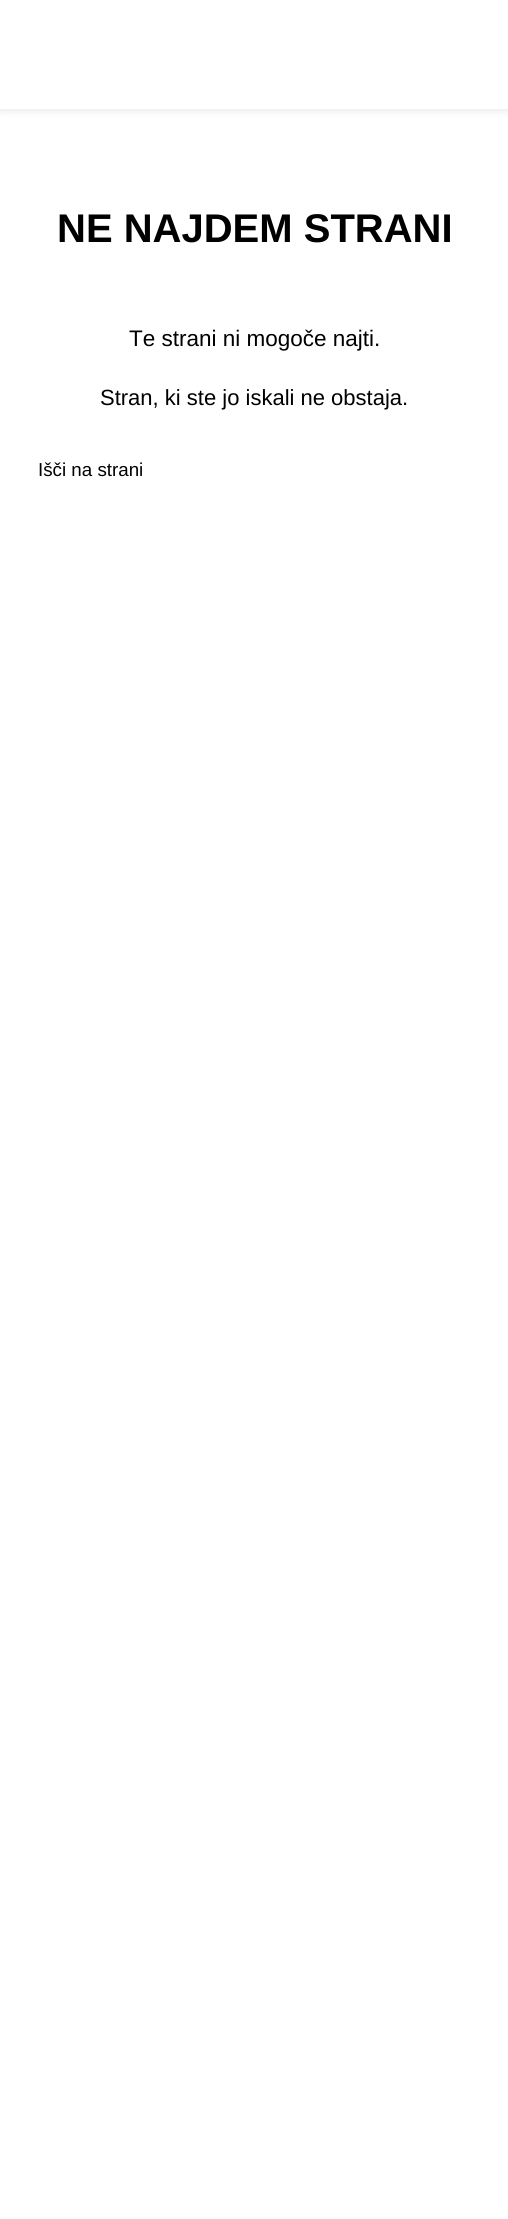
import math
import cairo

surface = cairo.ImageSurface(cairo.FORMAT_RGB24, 508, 2219)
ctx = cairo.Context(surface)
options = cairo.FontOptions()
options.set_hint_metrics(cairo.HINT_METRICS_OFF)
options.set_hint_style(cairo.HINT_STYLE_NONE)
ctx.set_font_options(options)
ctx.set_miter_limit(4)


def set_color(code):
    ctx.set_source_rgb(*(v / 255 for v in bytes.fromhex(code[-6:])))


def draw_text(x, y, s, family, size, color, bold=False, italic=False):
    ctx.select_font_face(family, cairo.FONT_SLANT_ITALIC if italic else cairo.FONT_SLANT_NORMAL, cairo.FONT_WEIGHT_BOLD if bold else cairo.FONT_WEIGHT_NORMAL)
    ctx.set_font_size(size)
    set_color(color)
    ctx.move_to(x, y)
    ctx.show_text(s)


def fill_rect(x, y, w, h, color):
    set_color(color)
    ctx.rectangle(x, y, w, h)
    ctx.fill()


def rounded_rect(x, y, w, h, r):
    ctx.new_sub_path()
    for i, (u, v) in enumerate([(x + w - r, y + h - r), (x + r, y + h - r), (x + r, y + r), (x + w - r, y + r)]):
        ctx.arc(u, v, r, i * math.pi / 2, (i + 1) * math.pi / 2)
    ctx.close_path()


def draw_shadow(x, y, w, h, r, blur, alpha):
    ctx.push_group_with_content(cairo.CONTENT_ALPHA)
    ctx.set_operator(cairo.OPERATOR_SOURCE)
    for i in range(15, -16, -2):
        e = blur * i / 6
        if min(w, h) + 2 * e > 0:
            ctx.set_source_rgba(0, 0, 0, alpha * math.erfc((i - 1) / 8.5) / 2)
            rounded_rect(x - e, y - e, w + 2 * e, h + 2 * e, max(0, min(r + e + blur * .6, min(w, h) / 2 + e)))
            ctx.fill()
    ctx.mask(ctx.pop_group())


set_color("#ffffff")
ctx.paint()
set_color("#000000")
draw_shadow(0, 1, 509, 109, 0, 5, 0.1)
fill_rect(0, 0, 508, 109, "#ffffff")
draw_text(57, 242, "NE NAJDEM STRANI", "Liberation Sans", 40, "#000000", bold=True)
draw_text(129, 346, "Te strani ni mogoče najti.", "Liberation Sans", 22.5, "#000000")
draw_text(100, 405, "Stran, ki ste jo iskali ne obstaja.", "Liberation Sans", 22, "#000000")
draw_text(38, 476, "Išči na strani", "Liberation Sans", 18.75, "#000000")
surface.write_to_png("output.png")
